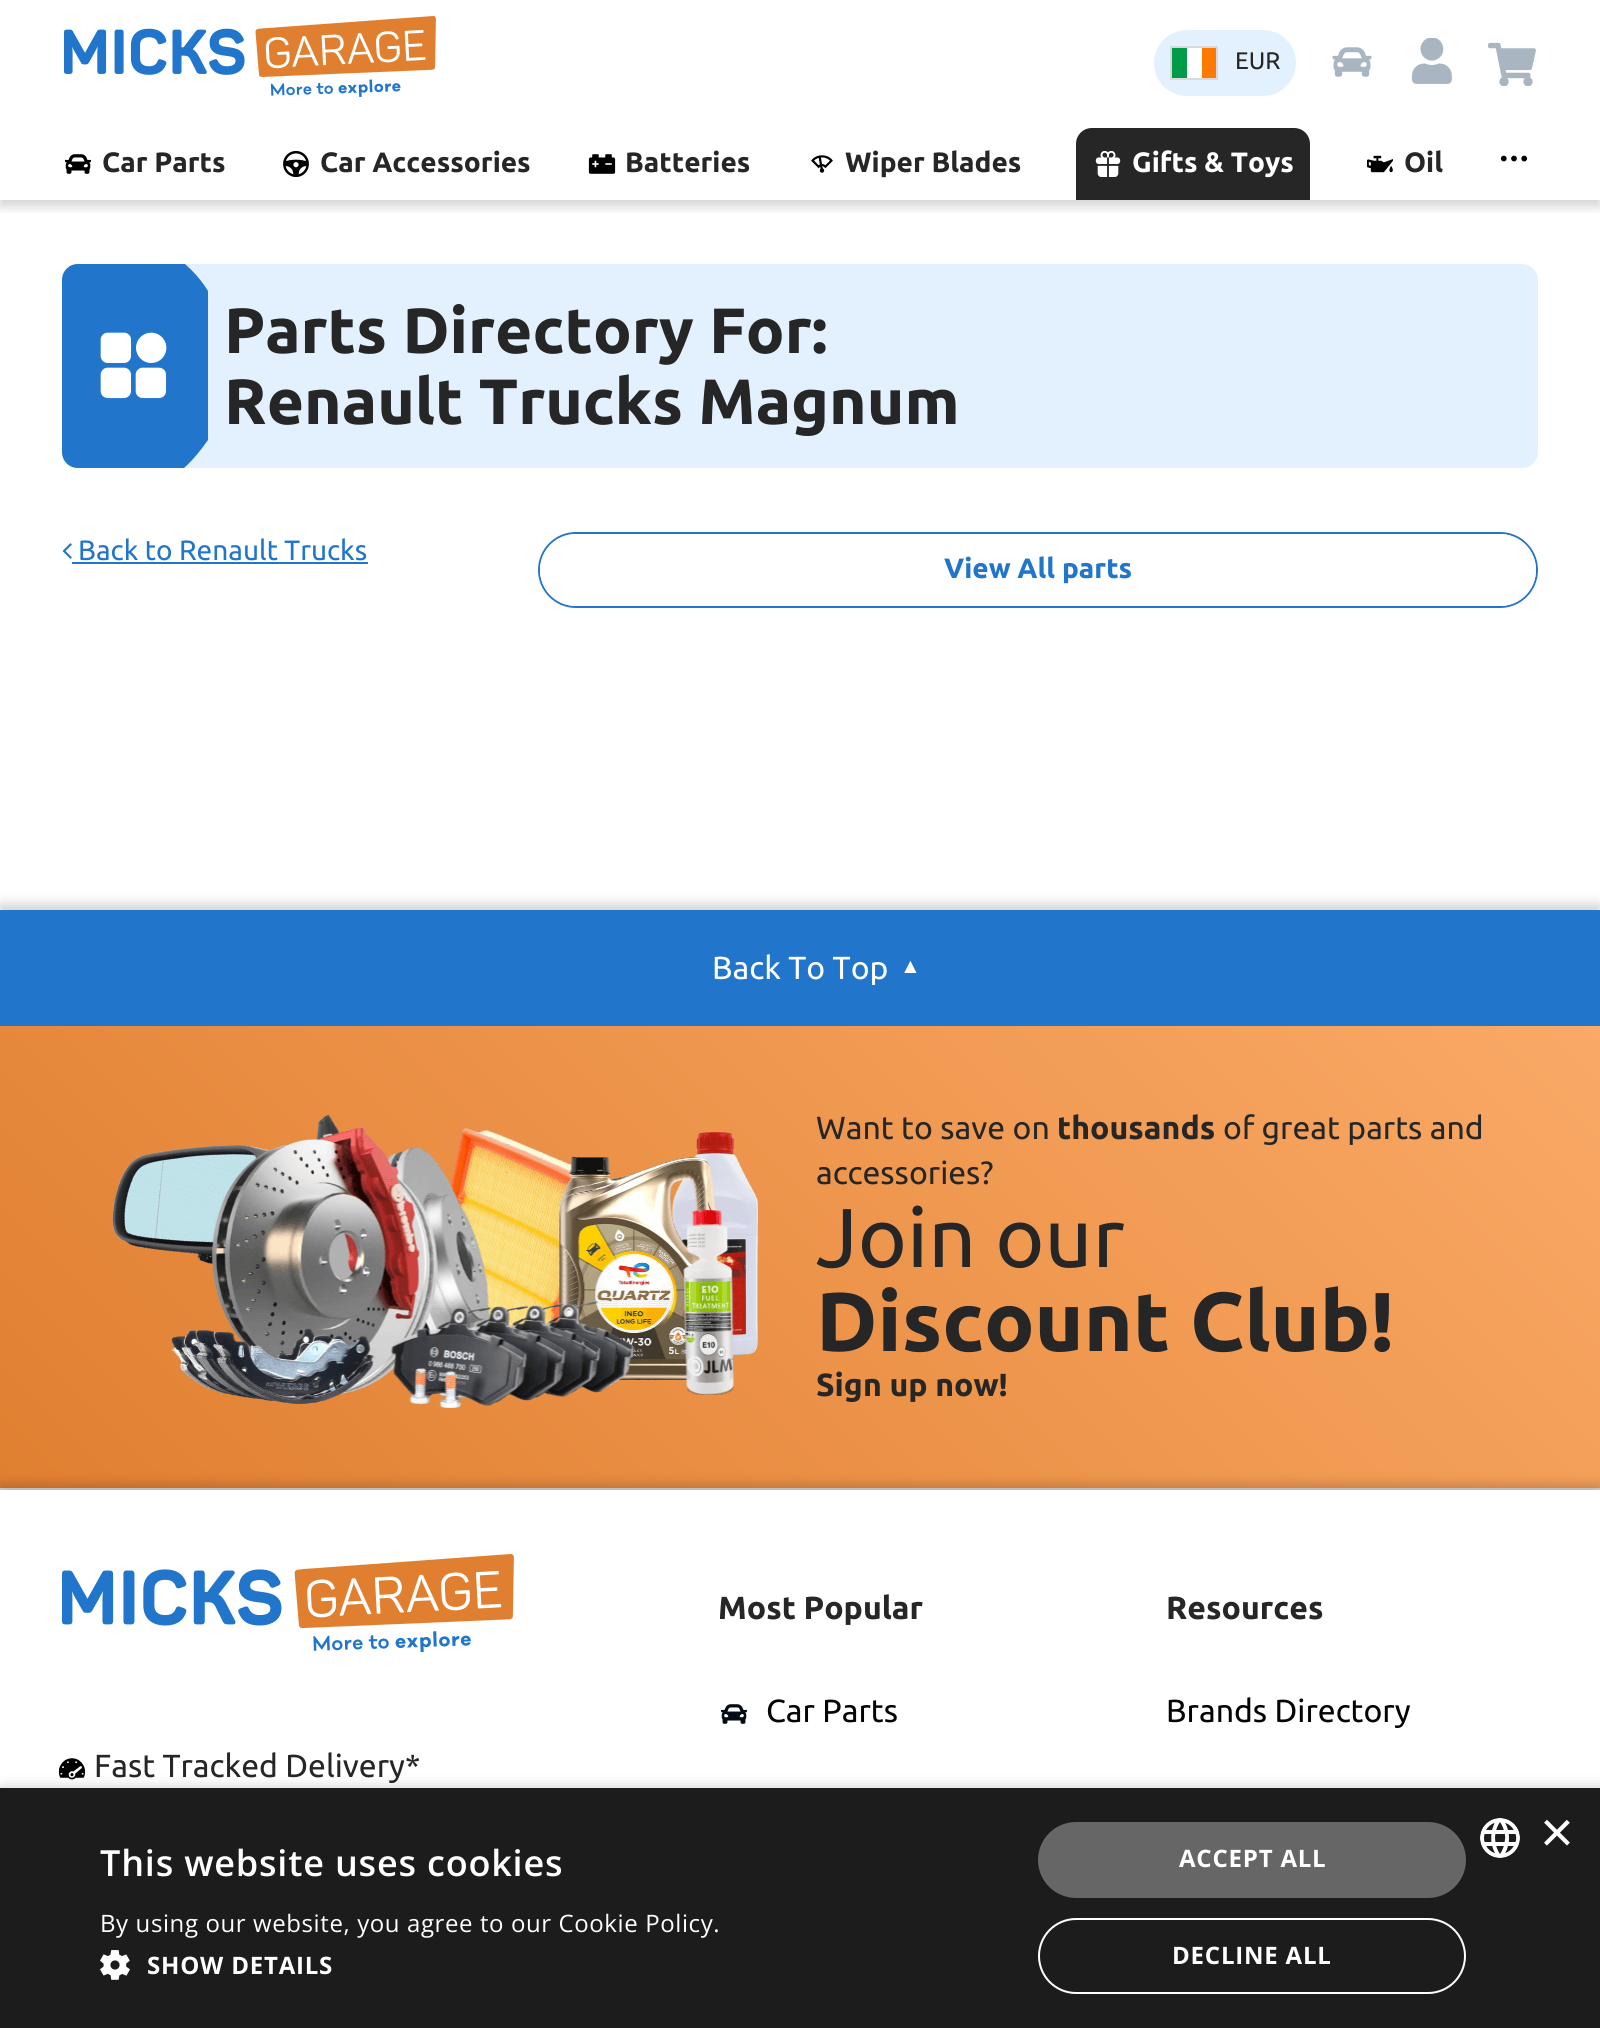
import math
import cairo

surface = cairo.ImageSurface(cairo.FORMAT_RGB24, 1600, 2028)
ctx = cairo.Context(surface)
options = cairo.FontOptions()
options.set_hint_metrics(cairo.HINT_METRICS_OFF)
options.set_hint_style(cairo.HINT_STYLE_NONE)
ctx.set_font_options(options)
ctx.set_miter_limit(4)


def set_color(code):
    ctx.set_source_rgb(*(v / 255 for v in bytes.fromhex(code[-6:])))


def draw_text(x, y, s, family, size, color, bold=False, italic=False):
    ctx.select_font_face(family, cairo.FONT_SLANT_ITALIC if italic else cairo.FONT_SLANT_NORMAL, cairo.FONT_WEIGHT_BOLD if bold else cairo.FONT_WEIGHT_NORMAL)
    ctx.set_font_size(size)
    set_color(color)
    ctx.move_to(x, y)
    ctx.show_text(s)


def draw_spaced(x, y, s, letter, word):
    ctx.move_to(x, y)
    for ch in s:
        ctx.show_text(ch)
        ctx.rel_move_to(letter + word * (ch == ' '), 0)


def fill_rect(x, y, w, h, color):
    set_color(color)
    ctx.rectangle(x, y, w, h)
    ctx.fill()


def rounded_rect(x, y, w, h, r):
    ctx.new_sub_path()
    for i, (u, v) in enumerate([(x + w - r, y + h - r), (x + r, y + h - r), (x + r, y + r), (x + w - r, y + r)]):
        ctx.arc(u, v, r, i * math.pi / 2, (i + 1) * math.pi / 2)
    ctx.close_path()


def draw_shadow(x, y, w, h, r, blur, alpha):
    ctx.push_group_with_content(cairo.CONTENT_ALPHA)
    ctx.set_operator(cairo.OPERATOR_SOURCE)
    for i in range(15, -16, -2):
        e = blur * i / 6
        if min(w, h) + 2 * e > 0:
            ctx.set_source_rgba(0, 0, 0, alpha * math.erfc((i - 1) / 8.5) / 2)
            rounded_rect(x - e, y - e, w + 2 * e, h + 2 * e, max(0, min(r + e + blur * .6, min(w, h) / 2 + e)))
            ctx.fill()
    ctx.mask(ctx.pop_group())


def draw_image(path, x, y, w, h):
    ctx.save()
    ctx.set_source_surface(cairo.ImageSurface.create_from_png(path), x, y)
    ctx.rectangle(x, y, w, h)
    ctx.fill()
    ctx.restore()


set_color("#ffffff")
ctx.paint()
ctx.save()
ctx.rectangle(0, 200, 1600, 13)
ctx.clip()
set_color("#000000")
draw_shadow(0, 6, 1600, 200, 0, 6, 0.18)
ctx.restore()
draw_image("assets/img1.png", 64, 16, 372, 81)
set_color("#e3f1ff")
rounded_rect(1154, 30, 142, 66, 33)
ctx.fill()
fill_rect(1187, 48, 15, 30, "#ffffff")
fill_rect(1172, 48, 15, 30, "#009a49")
fill_rect(1202, 48, 14, 30, "#ff7900")
ctx.rectangle(1171, 47, 46, 32)
set_color("#d9d9d9")
ctx.stroke()
draw_text(1235, 69, "EUR", "Ubuntu", 24, "#262626")
draw_image("assets/img2.png", 1332, 47, 40, 30)
draw_image("assets/img3.png", 1411, 38, 41, 46)
draw_image("assets/img4.png", 1488, 42, 48, 44)
draw_image("assets/img5.png", 64, 154, 28, 20)
draw_text(102, 172, "Car Parts", "Ubuntu", 28, "#262626", bold=True)
draw_image("assets/img6.png", 283, 151, 26, 26)
draw_text(320, 172, "Car Accessories", "Ubuntu", 28, "#262626", bold=True)
draw_image("assets/img7.png", 588, 154, 28, 20)
draw_text(625, 172, "Batteries", "Ubuntu", 28, "#262626", bold=True)
draw_image("assets/img8.png", 811, 155, 22, 18)
draw_text(845, 172, "Wiper Blades", "Ubuntu", 28, "#262626", bold=True)
ctx.new_path()
ctx.move_to(1092, 128)
ctx.line_to(1294, 128)
ctx.curve_to(1303, 128, 1310, 135, 1310, 144)
ctx.line_to(1310, 200)
ctx.line_to(1076, 200)
ctx.line_to(1076, 144)
ctx.curve_to(1076, 135, 1083, 128, 1092, 128)
ctx.close_path()
ctx.fill()
draw_image("assets/img9.png", 1095, 151, 26, 26)
draw_text(1132, 172, "Gifts & Toys", "Ubuntu", 28, "#ffffff", bold=True)
draw_image("assets/img10.png", 1367, 155, 26, 18)
draw_text(1404, 172, "Oil", "Ubuntu", 28, "#262626", bold=True)
draw_image("assets/img11.png", 1500, 155, 28, 7)
set_color("#e3f1ff")
rounded_rect(62, 264, 1476, 204, 16)
ctx.fill()
set_color("#2175ca")
ctx.new_path()
ctx.move_to(78, 264)
ctx.line_to(185, 264)
ctx.curve_to(194, 272, 202, 281, 208, 291)
ctx.line_to(208, 440)
ctx.curve_to(201, 450, 193, 460, 184, 468)
ctx.line_to(78, 468)
ctx.curve_to(69, 468, 62, 461, 62, 452)
ctx.line_to(62, 280)
ctx.curve_to(62, 271, 69, 264, 78, 264)
ctx.close_path()
ctx.fill()
draw_image("assets/img12.png", 100, 332, 67, 67)
draw_text(224, 353, "Parts Directory For:", "Ubuntu", 64, "#262626", bold=True)
draw_text(224, 424, "Renault Trucks Magnum", "Ubuntu", 64, "#262626", bold=True)
draw_image("assets/img13.png", 62, 543, 10, 16)
draw_text(78, 560, "Back to Renault Trucks", "Ubuntu", 28, "#2175ca")
fill_rect(72, 562, 296, 2, "#2175ca")
rounded_rect(539, 533, 998, 74, 37)
ctx.stroke()
set_color("#ffffff")
ctx.new_path()
ctx.move_to(576, 534)
ctx.curve_to(556, 534, 540, 550, 540, 570)
ctx.curve_to(540, 590, 556, 606, 576, 606)
ctx.line_to(1500, 606)
ctx.curve_to(1520, 606, 1536, 590, 1536, 570)
ctx.curve_to(1536, 550, 1520, 534, 1500, 534)
ctx.close_path()
ctx.fill()
draw_text(944, 578, "View All parts", "Ubuntu", 28, "#2175ca", bold=True)
set_color("#000000")
draw_shadow(0, 904, 1600, 116, 0, 6, 0.18)
fill_rect(0, 910, 1600, 116, "#2175ca")
draw_text(712, 979, "Back To Top", "Ubuntu", 32, "#ffffff")
draw_text(900, 973, "▲", "Liberation Sans", 21, "#ffffff")
gradient = cairo.LinearGradient(285, 1773, 1316, 742)
gradient.add_color_stop_rgba(0, 0.878, 0.498, 0.188, 1)
gradient.add_color_stop_rgba(1, 0.98, 0.663, 0.4, 1)
ctx.set_source(gradient)
ctx.rectangle(0, 1026, 1600, 462)
ctx.fill()
fill_rect(0, 1488, 1600, 2, "#dddddd")
draw_image("assets/img14.png", 112, 1114, 647, 294)
draw_text(816, 1139, "Want to save on", "Ubuntu", 32, "#262626")
draw_text(1057, 1139, "thousands", "Ubuntu", 32, "#262626", bold=True)
draw_text(1223, 1139, "of great parts and", "Ubuntu", 32, "#262626")
draw_text(816, 1184, "accessories?", "Ubuntu", 32, "#262626")
draw_text(816, 1267, "Join our", "Ubuntu", 83.5, "#262626")
draw_text(816, 1351, "Discount Club!", "Ubuntu", 83.5, "#262626", bold=True)
draw_text(816, 1396, "Sign up now!", "Ubuntu", 32, "#262626", bold=True)
set_color("#000000")
draw_shadow(0, 1484, 1600, 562, 0, 6, 0.18)
fill_rect(0, 1490, 1600, 298, "#ffffff")
draw_text(718, 1619, "Most Popular", "Ubuntu", 32, "#262626", bold=True)
draw_image("assets/img15.png", 720, 1704, 28, 20)
draw_text(766, 1722, "Car Parts", "Ubuntu", 32, "#040404")
draw_text(1166, 1619, "Resources", "Ubuntu", 32, "#262626", bold=True)
draw_text(1166, 1722, "Brands Directory", "Ubuntu", 32, "#040404")
draw_image("assets/img16.png", 62, 1554, 452, 98)
draw_image("assets/img17.png", 58, 1758, 28, 22)
draw_text(94, 1777, "Fast Tracked Delivery*", "Ubuntu", 32, "#262626")
set_color("#000000")
draw_shadow(2, 1792, 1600, 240, 0, 8, 0.35)
fill_rect(0, 1788, 1600, 240, "#1c1c1c")
draw_image("assets/img18.png", 1480, 1818, 40, 40)
draw_text(1540, 1852, "×", "Liberation Sans", 58, "#ffffff")
ctx.select_font_face("Open Sans SemiBold")
ctx.set_font_size(36)
draw_spaced(100, 1876, "This website uses cookies", 0.8, 0)
ctx.select_font_face("Open Sans")
ctx.set_font_size(24)
draw_spaced(100, 1932, "By using our website, you agree to our Cookie Policy.", 0.6, 0)
draw_image("assets/img19.png", 100, 1950, 30, 30)
ctx.select_font_face("Open Sans", cairo.FONT_SLANT_NORMAL, cairo.FONT_WEIGHT_BOLD)
draw_spaced(147, 1974, "SHOW DETAILS", 0.8, 0)
set_color("#666666")
rounded_rect(1038, 1822, 428, 76, 38)
ctx.fill()
set_color("#ffffff")
draw_spaced(1179, 1867, "ACCEPT ALL", 0.8, 0)
rounded_rect(1039, 1919, 426, 74, 37)
ctx.stroke()
draw_spaced(1172, 1964, "DECLINE ALL", 0.8, 0)
surface.write_to_png("output.png")
